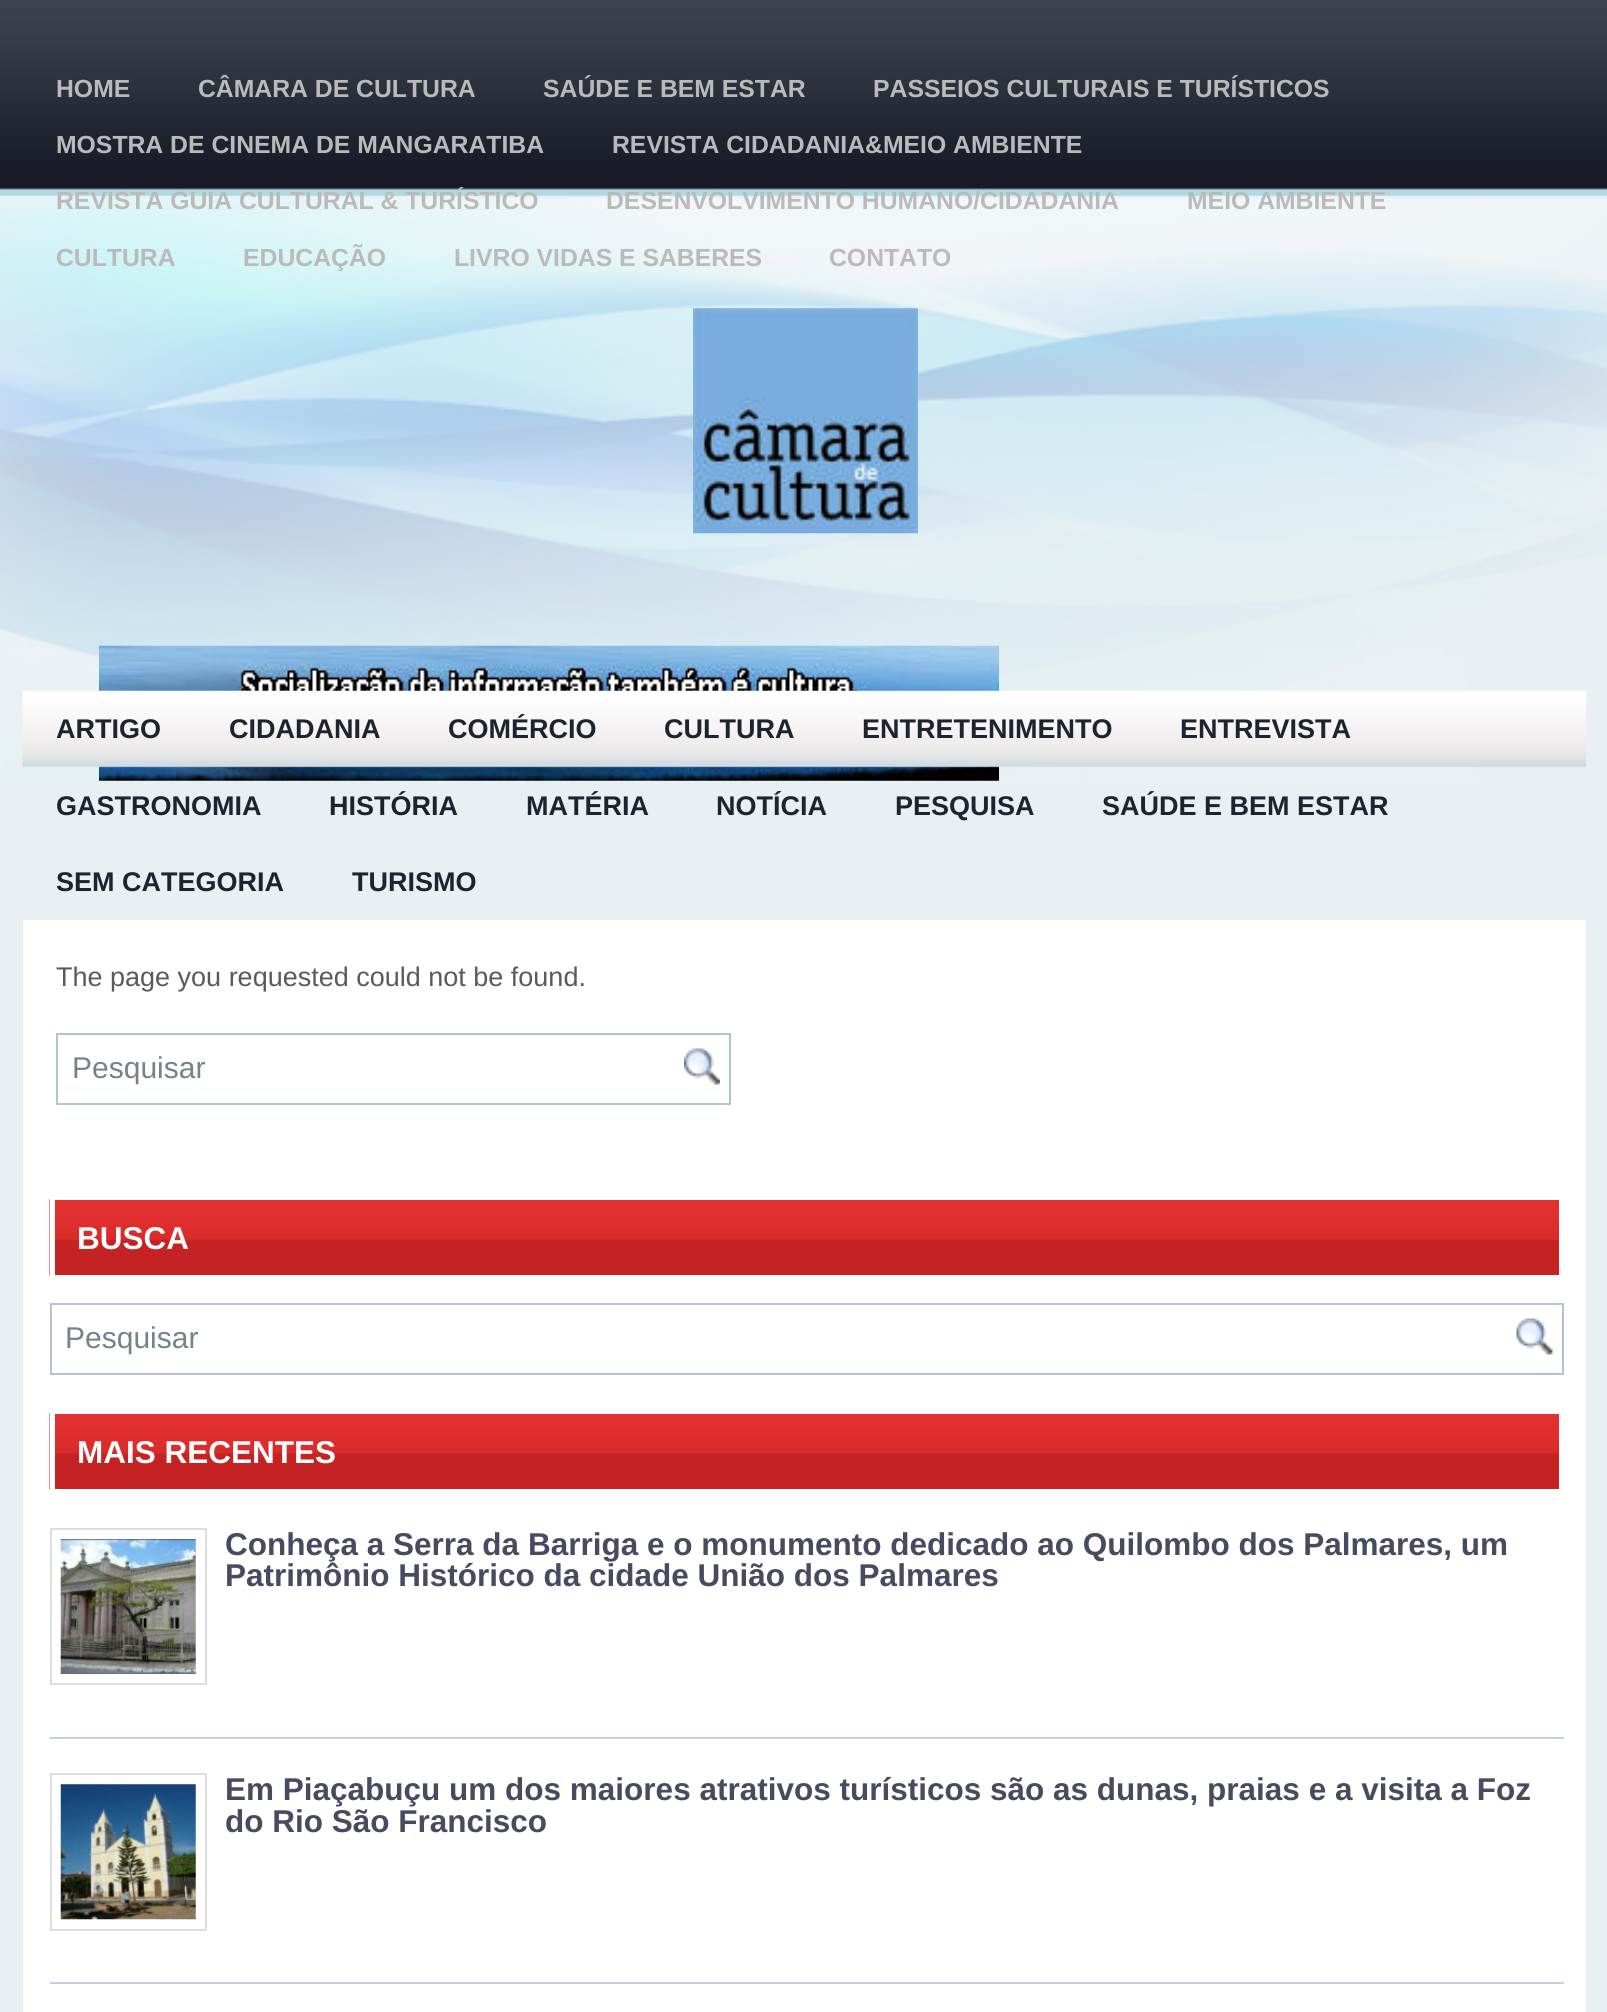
import math
import cairo

surface = cairo.ImageSurface(cairo.FORMAT_RGB24, 1607, 2012)
ctx = cairo.Context(surface)
options = cairo.FontOptions()
options.set_hint_metrics(cairo.HINT_METRICS_OFF)
options.set_hint_style(cairo.HINT_STYLE_NONE)
ctx.set_font_options(options)
ctx.set_miter_limit(4)


def set_color(code):
    ctx.set_source_rgb(*(v / 255 for v in bytes.fromhex(code[-6:])))


def draw_text(x, y, s, family, size, color, bold=False, italic=False):
    ctx.select_font_face(family, cairo.FONT_SLANT_ITALIC if italic else cairo.FONT_SLANT_NORMAL, cairo.FONT_WEIGHT_BOLD if bold else cairo.FONT_WEIGHT_NORMAL)
    ctx.set_font_size(size)
    set_color(color)
    ctx.move_to(x, y)
    ctx.show_text(s)


def fill_rect(x, y, w, h, color):
    set_color(color)
    ctx.rectangle(x, y, w, h)
    ctx.fill()


def draw_image(path, x, y, w, h):
    ctx.save()
    ctx.set_source_surface(cairo.ImageSurface.create_from_png(path), x, y)
    ctx.rectangle(x, y, w, h)
    ctx.fill()
    ctx.restore()


set_color("#e9f0f3")
ctx.paint()
draw_image("assets/img1.png", 0, 0, 1607, 196)
draw_image("assets/img2.png", 0, 198, 1607, 587)
draw_text(56, 97, "HOME", "Liberation Sans", 24.75, "#bababa", bold=True)
draw_text(198, 97, "CÂMARA DE CULTURA", "Liberation Sans", 24.75, "#bababa", bold=True)
draw_text(543, 97, "SAÚDE E BEM ESTAR", "Liberation Sans", 24.75, "#bababa", bold=True)
draw_text(873, 97, "PASSEIOS CULTURAIS E TURÍSTICOS", "Liberation Sans", 24.75, "#bababa", bold=True)
draw_text(56, 153, "MOSTRA DE CINEMA DE MANGARATIBA", "Liberation Sans", 24.75, "#bababa", bold=True)
draw_text(612, 153, "REVISTA CIDADANIA&MEIO AMBIENTE", "Liberation Sans", 24.75, "#bababa", bold=True)
draw_text(56, 209, "REVISTA GUIA CULTURAL & TURÍSTICO", "Liberation Sans", 24.75, "#bababa", bold=True)
draw_text(606, 209, "DESENVOLVIMENTO HUMANO/CIDADANIA", "Liberation Sans", 24.75, "#bababa", bold=True)
draw_text(1187, 209, "MEIO AMBIENTE", "Liberation Sans", 24.75, "#bababa", bold=True)
draw_text(56, 266, "CULTURA", "Liberation Sans", 24.75, "#bababa", bold=True)
draw_text(243, 266, "EDUCAÇÃO", "Liberation Sans", 24.75, "#bababa", bold=True)
draw_text(454, 266, "LIVRO VIDAS E SABERES", "Liberation Sans", 24.75, "#bababa", bold=True)
draw_text(829, 266, "CONTATO", "Liberation Sans", 24.75, "#bababa", bold=True)
draw_image("assets/img3.png", 693, 308, 225, 226)
draw_image("assets/img4.png", 99, 645, 900, 136)
draw_image("assets/img5.png", 22, 690, 1565, 78)
draw_text(56, 738, "ARTIGO", "Liberation Sans", 27, "#1f232f", bold=True)
draw_text(229, 738, "CIDADANIA", "Liberation Sans", 27, "#1f232f", bold=True)
draw_text(448, 738, "COMÉRCIO", "Liberation Sans", 27, "#1f232f", bold=True)
draw_text(664, 738, "CULTURA", "Liberation Sans", 27, "#1f232f", bold=True)
draw_text(862, 738, "ENTRETENIMENTO", "Liberation Sans", 27, "#1f232f", bold=True)
draw_text(1180, 738, "ENTREVISTA", "Liberation Sans", 27, "#1f232f", bold=True)
draw_text(56, 815, "GASTRONOMIA", "Liberation Sans", 27, "#1f232f", bold=True)
draw_text(329, 815, "HISTÓRIA", "Liberation Sans", 27, "#1f232f", bold=True)
draw_text(526, 815, "MATÉRIA", "Liberation Sans", 27, "#1f232f", bold=True)
draw_text(716, 815, "NOTÍCIA", "Liberation Sans", 27, "#1f232f", bold=True)
draw_text(895, 815, "PESQUISA", "Liberation Sans", 27, "#1f232f", bold=True)
draw_text(1102, 815, "SAÚDE E BEM ESTAR", "Liberation Sans", 27, "#1f232f", bold=True)
draw_text(56, 891, "SEM CATEGORIA", "Liberation Sans", 27, "#1f232f", bold=True)
draw_text(352, 891, "TURISMO", "Liberation Sans", 27, "#1f232f", bold=True)
fill_rect(23, 920, 1563, 1092, "#ffffff")
draw_text(56, 986, "The page you requested could not be found.", "Liberation Sans", 27, "#585a61")
ctx.rectangle(57, 1034, 673, 70)
set_color("#b4c2d3")
ctx.stroke()
draw_text(72, 1078, "Pesquisar", "Liberation Sans", 30, "#72838a")
draw_image("assets/img6.png", 684, 1048, 36, 37)
draw_image("assets/img7.png", 49, 1199, 1510, 77)
ctx.rectangle(52.5, 1197.5, 1509, 80)
set_color("#ffffff")
ctx.set_line_width(5)
ctx.stroke()
draw_text(77, 1249, "BUSCA", "Liberation Sans", 31.5, "#ffffff", bold=True)
ctx.rectangle(51, 1304, 1512, 70)
set_color("#b4c2d3")
ctx.set_line_width(2)
ctx.stroke()
draw_text(65, 1348, "Pesquisar", "Liberation Sans", 30, "#72838a")
draw_image("assets/img8.png", 1516, 1318, 37, 37)
draw_image("assets/img9.png", 49, 1413, 1510, 77)
ctx.rectangle(52.5, 1411.5, 1509, 80)
set_color("#ffffff")
ctx.set_line_width(5)
ctx.stroke()
draw_text(77, 1463, "MAIS RECENTES", "Liberation Sans", 31.5, "#ffffff", bold=True)
fill_rect(50, 1737, 1514, 2, "#c2d3db")
ctx.rectangle(51, 1529, 155, 155)
set_color("#dddddd")
ctx.set_line_width(2)
ctx.stroke()
draw_image("assets/img10.png", 60, 1539, 136, 135)
draw_text(225, 1555, "Conheça a Serra da Barriga e o monumento dedicado ao Quilombo dos Palmares, um", "Liberation Sans", 31.5, "#464b60", bold=True)
draw_text(225, 1586, "Patrimônio Histórico da cidade União dos Palmares", "Liberation Sans", 31.5, "#464b60", bold=True)
fill_rect(50, 1982, 1514, 2, "#c2d3db")
ctx.rectangle(51, 1774, 155, 156)
set_color("#dddddd")
ctx.stroke()
draw_image("assets/img11.png", 60, 1784, 136, 136)
draw_text(225, 1800, "Em Piaçabuçu um dos maiores atrativos turísticos são as dunas, praias e a visita a Foz", "Liberation Sans", 31.5, "#464b60", bold=True)
draw_text(225, 1832, "do Rio São Francisco", "Liberation Sans", 31.5, "#464b60", bold=True)
surface.write_to_png("output.png")
